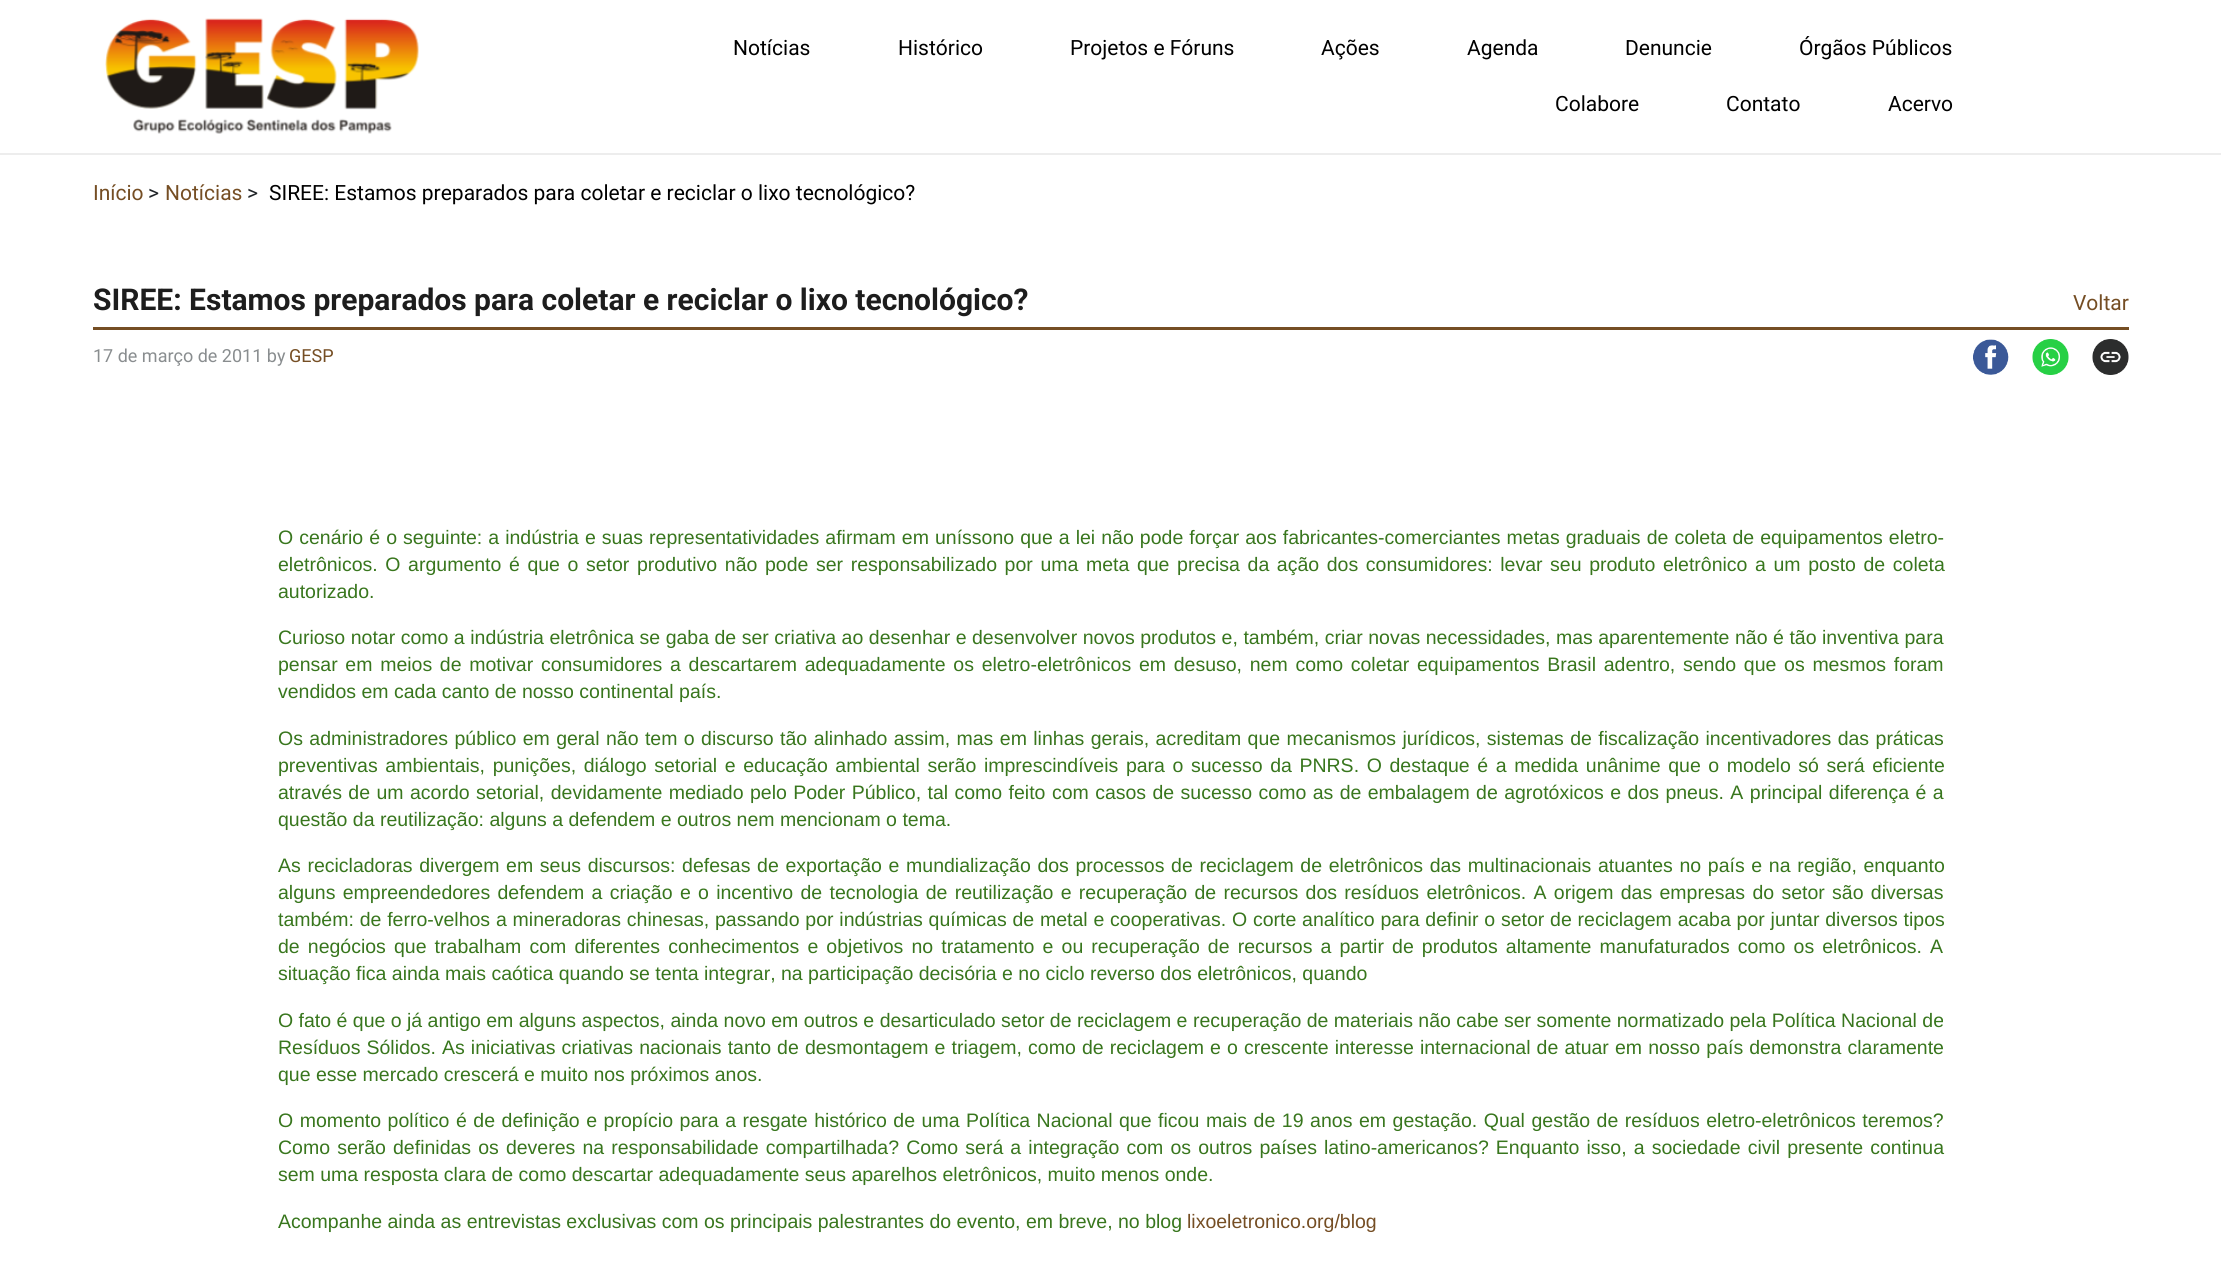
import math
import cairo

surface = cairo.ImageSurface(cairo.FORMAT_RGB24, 2221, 1272)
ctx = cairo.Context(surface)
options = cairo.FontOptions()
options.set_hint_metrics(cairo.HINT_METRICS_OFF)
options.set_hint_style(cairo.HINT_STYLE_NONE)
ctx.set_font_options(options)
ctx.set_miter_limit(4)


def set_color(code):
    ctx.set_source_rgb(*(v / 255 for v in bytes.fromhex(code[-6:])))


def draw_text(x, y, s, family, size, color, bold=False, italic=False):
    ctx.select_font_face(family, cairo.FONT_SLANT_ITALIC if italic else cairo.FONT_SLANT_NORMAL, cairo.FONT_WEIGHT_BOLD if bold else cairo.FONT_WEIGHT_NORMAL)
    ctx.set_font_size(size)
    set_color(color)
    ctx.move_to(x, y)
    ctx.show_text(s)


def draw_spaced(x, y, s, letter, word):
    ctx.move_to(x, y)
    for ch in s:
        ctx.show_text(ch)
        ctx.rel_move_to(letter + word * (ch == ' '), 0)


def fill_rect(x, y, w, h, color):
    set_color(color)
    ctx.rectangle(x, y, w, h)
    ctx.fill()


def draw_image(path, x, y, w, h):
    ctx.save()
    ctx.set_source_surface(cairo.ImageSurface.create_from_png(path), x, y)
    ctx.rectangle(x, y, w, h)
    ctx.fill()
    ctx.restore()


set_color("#ffffff")
ctx.paint()
fill_rect(0, 153, 2221, 2, "#ededed")
draw_image("assets/img1.png", 105, 18, 314, 116)
draw_text(733, 55, "Notícias", "Roboto", 21, "#000000")
draw_text(898, 55, "Histórico", "Roboto", 21, "#000000")
draw_text(1070, 55, "Projetos e Fóruns", "Roboto", 21, "#000000")
draw_text(1321, 55, "Ações", "Roboto", 21, "#000000")
draw_text(1467, 55, "Agenda", "Roboto", 21, "#000000")
draw_text(1625, 55, "Denuncie", "Roboto", 21, "#000000")
draw_text(1799, 55, "Órgãos Públicos", "Roboto", 21, "#000000")
draw_text(1555, 111, "Colabore", "Roboto", 21, "#000000")
draw_text(1726, 111, "Contato", "Roboto", 21, "#000000")
draw_text(1888, 111, "Acervo", "Roboto", 21, "#000000")
draw_text(93, 200, "Início", "Roboto", 21, "#754e24")
draw_text(148, 200, ">", "Roboto", 21, "#212529")
draw_text(165, 200, "Notícias", "Roboto", 21, "#754e24")
draw_text(247, 200, ">", "Roboto", 21, "#212529")
draw_text(269, 200, "SIREE: Estamos preparados para coletar e reciclar o lixo tecnológico?", "Roboto", 21, "#000000")
fill_rect(93, 327, 2036, 3, "#754e24")
draw_text(93, 310, "SIREE: Estamos preparados para coletar e reciclar o lixo tecnológico?", "Roboto", 30, "#1d1d1d", bold=True)
draw_text(2073, 310, "Voltar", "Roboto", 21, "#754e24")
draw_text(93, 362, "17 de março de 2011 by", "Roboto", 18, "#898d8f")
draw_text(289, 362, "GESP", "Roboto", 18, "#754e24")
draw_image("assets/img2.png", 1973, 339, 36, 36)
draw_image("assets/img3.png", 2032, 339, 37, 36)
draw_image("assets/img4.png", 2092, 339, 37, 36)
ctx.select_font_face("Liberation Sans")
ctx.set_font_size(19.5)
set_color("#38761d")
draw_spaced(278, 544, "O cenário é o seguinte: a indústria e suas representatividades afirmam em uníssono que a lei não pode forçar aos fabricantes-comerciantes metas graduais de coleta de equipamentos eletro-", 0, 0.65)
draw_spaced(278, 571, "eletrônicos. O argumento é que o setor produtivo não pode ser responsabilizado por uma meta que precisa da ação dos consumidores: levar seu produto eletrônico a um posto de coleta", 0, 2.2)
draw_text(278, 598, "autorizado.", "Liberation Sans", 19.5, "#38761d")
draw_spaced(278, 644, "Curioso notar como a indústria eletrônica se gaba de ser criativa ao desenhar e desenvolver novos produtos e, também, criar novas necessidades, mas aparentemente não é tão inventiva para", 0, 0.1)
draw_spaced(278, 671, "pensar em meios de motivar consumidores a descartarem adequadamente os eletro-eletrônicos em desuso, nem como coletar equipamentos Brasil adentro, sendo que os mesmos foram", 0, 2.3)
draw_text(278, 698, "vendidos em cada canto de nosso continental país.", "Liberation Sans", 19.5, "#38761d")
draw_spaced(278, 745, "Os administradores público em geral não tem o discurso tão alinhado assim, mas em linhas gerais, acreditam que mecanismos jurídicos, sistemas de fiscalização incentivadores das práticas", 0, 1)
draw_spaced(278, 772, "preventivas ambientais, punições, diálogo setorial e educação ambiental serão imprescindíveis para o sucesso da PNRS. O destaque é a medida unânime que o modelo só será eficiente", 0, 2.2)
draw_spaced(278, 799, "através de um acordo setorial, devidamente mediado pelo Poder Público, tal como feito com casos de sucesso como as de embalagem de agrotóxicos e dos pneus. A principal diferença é a", 0, 1)
draw_text(278, 826, "questão da reutilização: alguns a defendem e outros nem mencionam o tema.", "Liberation Sans", 19.5, "#38761d")
draw_spaced(278, 872, "As recicladoras divergem em seus discursos: defesas de exportação e mundialização dos processos de reciclagem de eletrônicos das multinacionais atuantes no país e na região, enquanto", 0, 1.25)
draw_spaced(278, 899, "alguns empreendedores defendem a criação e o incentivo de tecnologia de reutilização e recuperação de recursos dos resíduos eletrônicos. A origem das empresas do setor são diversas", 0, 1.9)
draw_spaced(278, 926, "também: de ferro-velhos a mineradoras chinesas, passando por indústrias químicas de metal e cooperativas. O corte analítico para definir o setor de reciclagem acaba por juntar diversos tipos", 0, 0.4)
draw_spaced(278, 953, "de negócios que trabalham com diferentes conhecimentos e objetivos no tratamento e ou recuperação de recursos a partir de produtos altamente manufaturados como os eletrônicos. A", 0, 2.7)
draw_text(278, 980, "situação fica ainda mais caótica quando se tenta integrar, na participação decisória e no ciclo reverso dos eletrônicos, quando", "Liberation Sans", 19.5, "#38761d")
draw_text(278, 1027, "O fato é que o já antigo em alguns aspectos, ainda novo em outros e desarticulado setor de reciclagem e recuperação de materiais não cabe ser somente normatizado pela Política Nacional de", "Liberation Sans", 19.5, "#38761d")
draw_spaced(278, 1054, "Resíduos Sólidos. As iniciativas criativas nacionais tanto de desmontagem e triagem, como de reciclagem e o crescente interesse internacional de atuar em nosso país demonstra claramente", 0, 0.7)
draw_text(278, 1081, "que esse mercado crescerá e muito nos próximos anos.", "Liberation Sans", 19.5, "#38761d")
draw_spaced(278, 1127, "O momento político é de definição e propício para a resgate histórico de uma Política Nacional que ficou mais de 19 anos em gestação. Qual gestão de resíduos eletro-eletrônicos teremos?", 0, 1.15)
draw_spaced(278, 1154, "Como serão definidas os deveres na responsabilidade compartilhada? Como será a integração com os outros países latino-americanos? Enquanto isso, a sociedade civil presente continua", 0, 1.7)
draw_text(278, 1181, "sem uma resposta clara de como descartar adequadamente seus aparelhos eletrônicos, muito menos onde.", "Liberation Sans", 19.5, "#38761d")
draw_text(278, 1228, "Acompanhe ainda as entrevistas exclusivas com os principais palestrantes do evento, em breve, no blog", "Liberation Sans", 19.5, "#38761d")
draw_text(1187, 1228, "lixoeletronico.org/blog", "Liberation Sans", 19.5, "#754e24")
surface.write_to_png("output.png")
